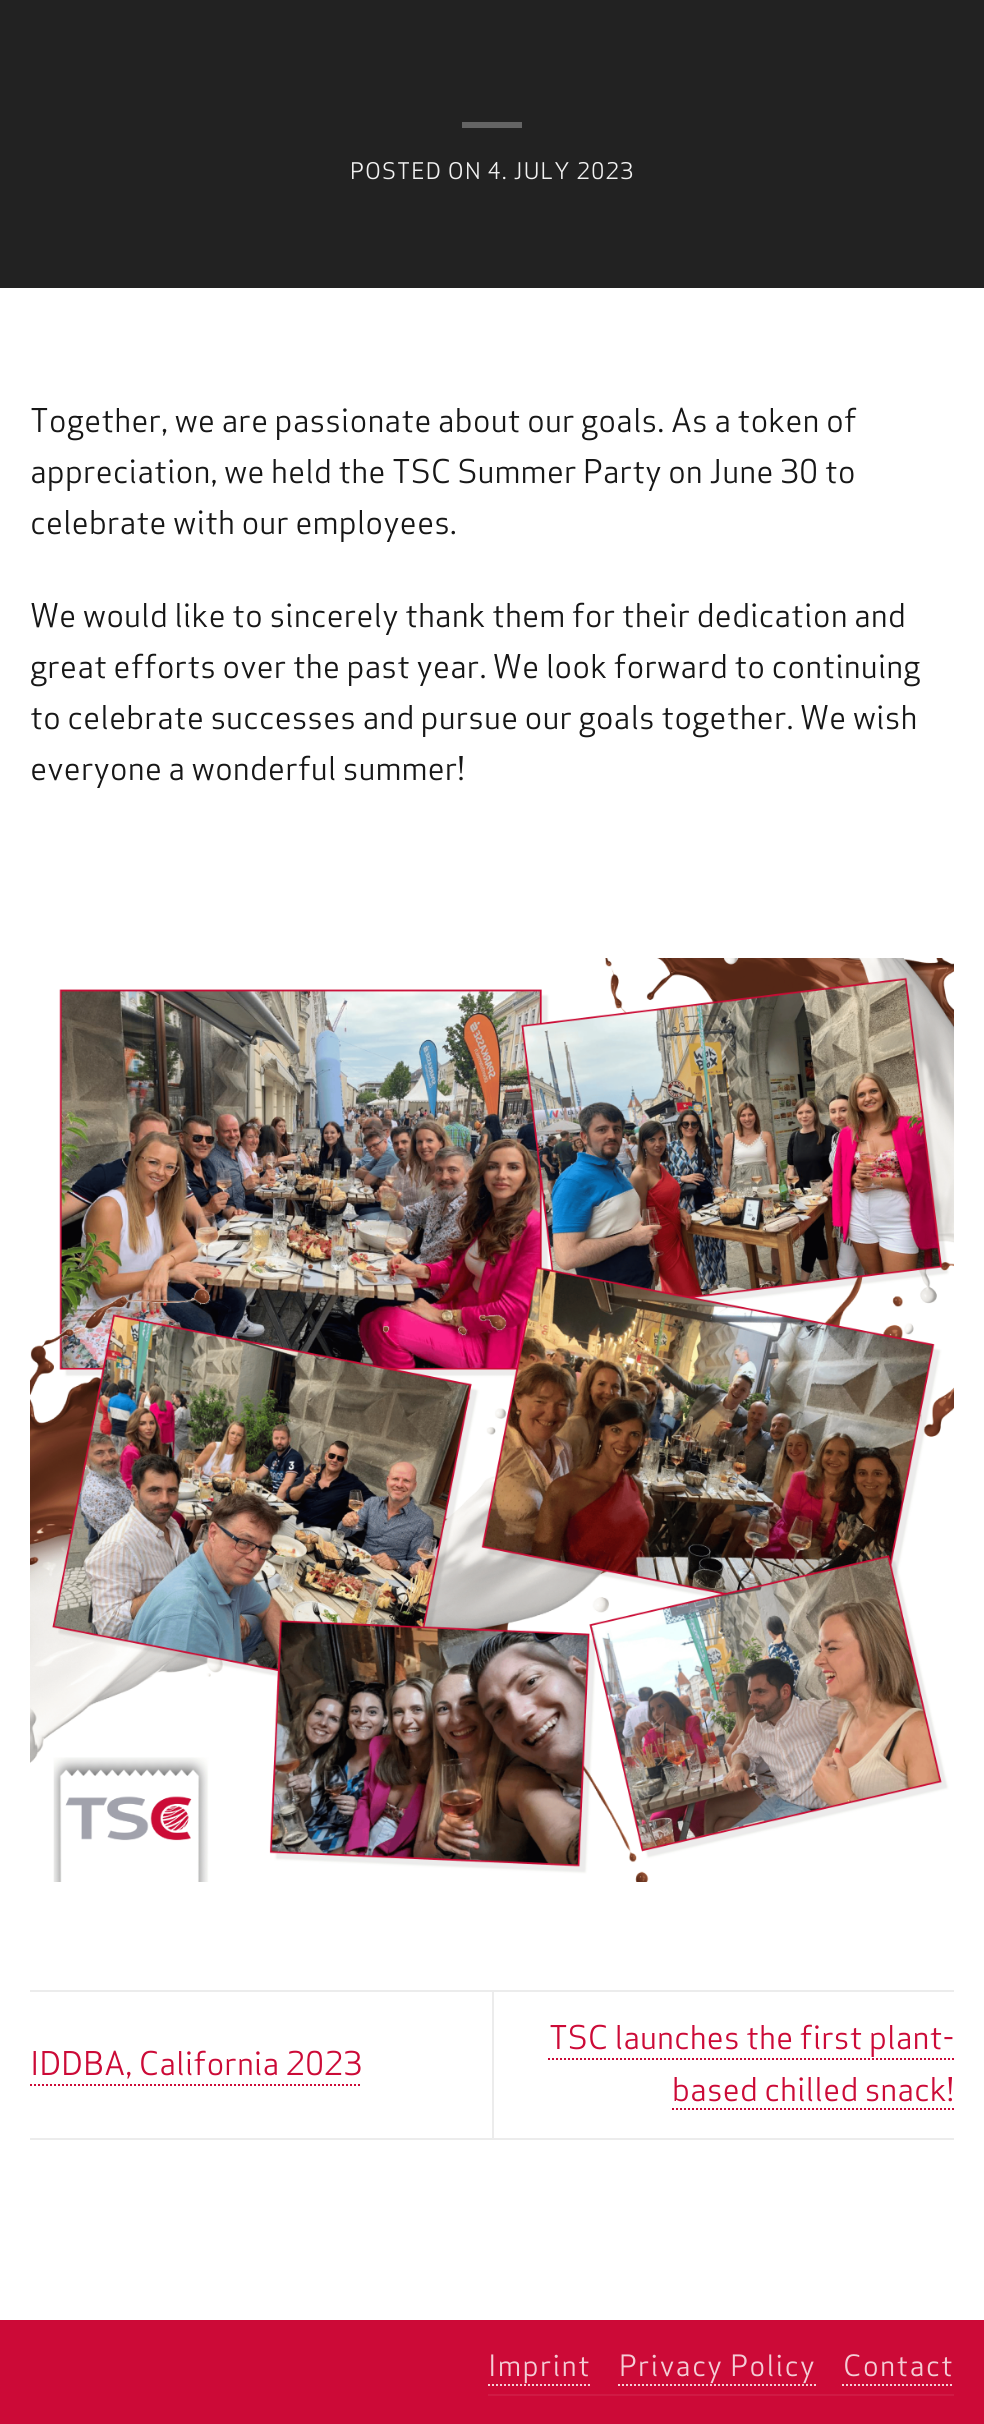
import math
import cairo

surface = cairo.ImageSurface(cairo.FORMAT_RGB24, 984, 2424)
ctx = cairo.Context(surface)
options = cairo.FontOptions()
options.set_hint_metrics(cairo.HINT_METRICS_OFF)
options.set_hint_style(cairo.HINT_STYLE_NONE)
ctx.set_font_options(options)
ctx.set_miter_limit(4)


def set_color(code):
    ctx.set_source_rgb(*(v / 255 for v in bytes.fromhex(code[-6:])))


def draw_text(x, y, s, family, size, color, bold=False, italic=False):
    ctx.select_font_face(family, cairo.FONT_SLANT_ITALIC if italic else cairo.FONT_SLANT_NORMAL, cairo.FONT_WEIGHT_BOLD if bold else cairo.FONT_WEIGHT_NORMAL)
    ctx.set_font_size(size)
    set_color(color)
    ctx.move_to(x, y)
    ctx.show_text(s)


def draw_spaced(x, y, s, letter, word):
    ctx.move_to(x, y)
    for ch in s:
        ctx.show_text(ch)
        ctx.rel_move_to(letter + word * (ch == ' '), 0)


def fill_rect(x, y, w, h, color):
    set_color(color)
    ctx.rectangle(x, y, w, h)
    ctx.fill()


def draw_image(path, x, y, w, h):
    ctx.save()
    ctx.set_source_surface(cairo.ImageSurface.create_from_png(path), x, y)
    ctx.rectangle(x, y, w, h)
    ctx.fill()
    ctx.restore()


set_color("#ffffff")
ctx.paint()
fill_rect(0, 0, 984, 288, "#222222")
fill_rect(462, 122, 60, 6, "#646464")
ctx.select_font_face("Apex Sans")
ctx.set_font_size(22.4)
set_color("#f1f1f1")
draw_spaced(350, 179, "POSTED ON 4. JULY 2023", 1.1, 0)
draw_text(30, 432, "Together, we are passionate about our goals. As a token of", "Apex Sans", 32, "#171717")
draw_text(30, 483, "appreciation, we held the TSC Summer Party on June 30 to", "Apex Sans", 32, "#171717")
draw_text(30, 534, "celebrate with our employees.", "Apex Sans", 32, "#171717")
draw_text(30, 627, "We would like to sincerely thank them for their dedication and", "Apex Sans", 32, "#171717")
draw_text(30, 678, "great efforts over the past year. We look forward to continuing", "Apex Sans", 32, "#171717")
draw_text(30, 729, "to celebrate successes and pursue our goals together. We wish", "Apex Sans", 32, "#171717")
draw_text(30, 780, "everyone a wonderful summer!", "Apex Sans", 32, "#171717")
draw_image("assets/img1.png", 30, 958, 924, 924)
fill_rect(30, 1990, 924, 2, "#ececec")
fill_rect(30, 2138, 924, 2, "#ececec")
draw_text(30, 2075, "IDDBA, California 2023", "Apex Sans", 32, "#cc0a37")
ctx.new_path()
ctx.move_to(30, 2085)
ctx.line_to(362, 2085)
ctx.set_dash([2, 2])
ctx.stroke()
fill_rect(492, 1992, 2, 146, "#ececec")
draw_text(549, 2049, "TSC launches the first plant-", "Apex Sans", 32, "#cc0a37")
ctx.new_path()
ctx.move_to(548, 2059)
ctx.line_to(954, 2059)
ctx.stroke()
draw_text(672, 2101, "based chilled snack!", "Apex Sans", 32, "#cc0a37")
ctx.new_path()
ctx.move_to(672, 2109)
ctx.line_to(954, 2109)
ctx.stroke()
fill_rect(0, 2320, 984, 104, "#cc0a37")
fill_rect(488, 2394, 466, 2, "#cf1a44")
ctx.set_font_size(28.75)
set_color("#f4cdd6")
draw_spaced(488, 2376, "Imprint", 1.25, 0)
ctx.new_path()
ctx.move_to(488, 2385)
ctx.line_to(592, 2385)
set_color("#f5ced7")
ctx.stroke()
set_color("#f4cdd6")
draw_spaced(619, 2376, "Privacy Policy", 1.25, 0)
ctx.new_path()
ctx.move_to(618, 2385)
ctx.line_to(816, 2385)
set_color("#f5ced7")
ctx.stroke()
set_color("#f4cdd6")
draw_spaced(843, 2376, "Contact", 1.25, 0)
ctx.new_path()
ctx.move_to(842, 2385)
ctx.line_to(954, 2385)
set_color("#f5ced7")
ctx.stroke()
surface.write_to_png("output.png")
